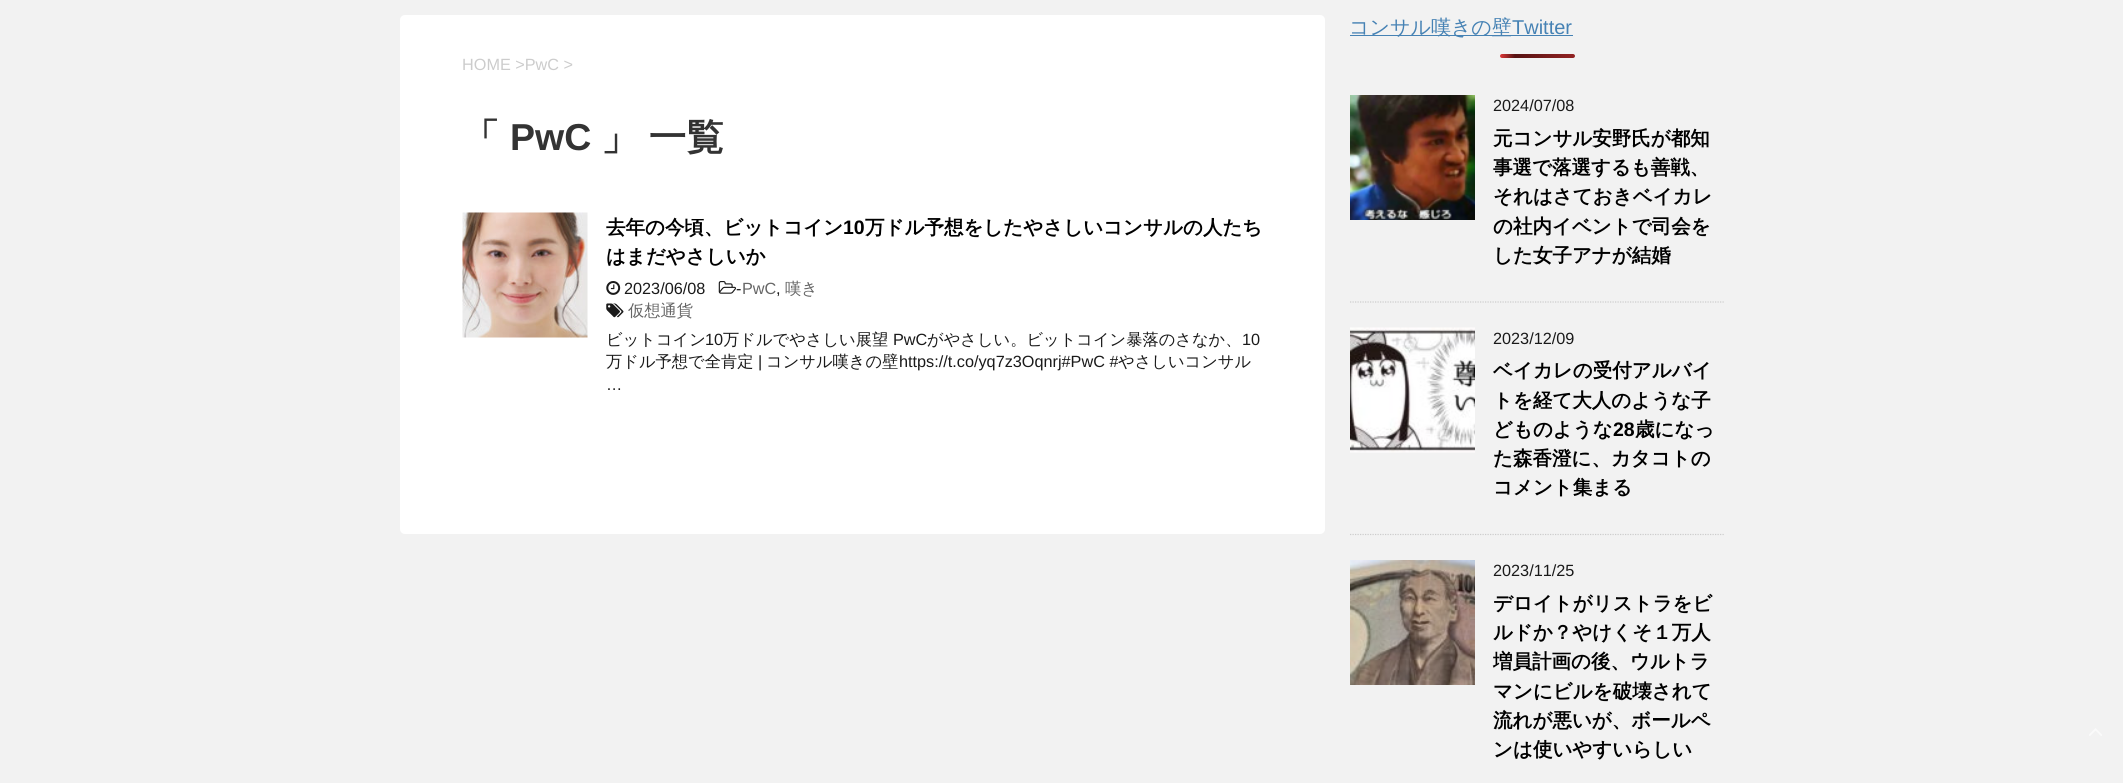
import math
import cairo

surface = cairo.ImageSurface(cairo.FORMAT_RGB24, 2123, 783)
ctx = cairo.Context(surface)
options = cairo.FontOptions()
options.set_hint_metrics(cairo.HINT_METRICS_OFF)
options.set_hint_style(cairo.HINT_STYLE_NONE)
ctx.set_font_options(options)
ctx.set_miter_limit(4)


def set_color(code):
    ctx.set_source_rgb(*(v / 255 for v in bytes.fromhex(code[-6:])))


def draw_text(x, y, s, family, size, color, bold=False, italic=False):
    ctx.select_font_face(family, cairo.FONT_SLANT_ITALIC if italic else cairo.FONT_SLANT_NORMAL, cairo.FONT_WEIGHT_BOLD if bold else cairo.FONT_WEIGHT_NORMAL)
    ctx.set_font_size(size)
    set_color(color)
    ctx.move_to(x, y)
    ctx.show_text(s)


def draw_spaced(x, y, s, letter, word):
    ctx.move_to(x, y)
    for ch in s:
        ctx.show_text(ch)
        ctx.rel_move_to(letter + word * (ch == ' '), 0)


def fill_rect(x, y, w, h, color):
    set_color(color)
    ctx.rectangle(x, y, w, h)
    ctx.fill()


def rounded_rect(x, y, w, h, r):
    ctx.new_sub_path()
    for i, (u, v) in enumerate([(x + w - r, y + h - r), (x + r, y + h - r), (x + r, y + r), (x + w - r, y + r)]):
        ctx.arc(u, v, r, i * math.pi / 2, (i + 1) * math.pi / 2)
    ctx.close_path()


def draw_image(path, x, y, w, h):
    ctx.save()
    ctx.set_source_surface(cairo.ImageSurface.create_from_png(path), x, y)
    ctx.rectangle(x, y, w, h)
    ctx.fill()
    ctx.restore()


set_color("#f2f2f2")
ctx.paint()
set_color("#ffffff")
rounded_rect(400, 15, 925, 519, 5)
ctx.fill()
draw_text(462, 70, "HOME >PwC >", "Liberation Sans", 16.25, "#cccccc")
draw_text(462, 150, "「", "WenQuanYi Zen Hei", 37.5, "#333333", bold=True)
draw_text(510, 150, "PwC", "Liberation Sans", 37.5, "#333333", bold=True)
ctx.select_font_face("WenQuanYi Zen Hei", cairo.FONT_SLANT_NORMAL, cairo.FONT_WEIGHT_BOLD)
draw_spaced(601, 150, "」 一覧", 0, -1)
draw_image("assets/img1.png", 462, 212, 126, 126)
draw_text(606, 234, "去年の今頃、ビットコイン", "WenQuanYi Zen Hei", 19.5, "#000000", bold=True)
draw_text(843, 234, "10", "Liberation Sans", 19.5, "#000000", bold=True)
draw_text(865, 234, "万ドル予想をしたやさしいコンサルの人たち", "WenQuanYi Zen Hei", 19.5, "#000000", bold=True)
draw_text(606, 263, "はまだやさしいか", "WenQuanYi Zen Hei", 19.5, "#000000", bold=True)
draw_image("assets/img2.png", 606, 281, 15, 14)
draw_image("assets/img3.png", 718, 281, 18, 13)
draw_text(736, 294, "-", "Liberation Sans", 16.25, "#1a1a1a")
draw_text(742, 294, "PwC", "Liberation Sans", 16.25, "#666666")
draw_text(785, 294, "嘆き", "WenQuanYi Zen Hei Medium", 16.25, "#666666")
draw_text(776, 294, ",", "Liberation Sans", 16.25, "#1a1a1a")
draw_image("assets/img4.png", 606, 303, 18, 15)
draw_text(628, 316, "仮想通貨", "WenQuanYi Zen Hei Medium", 16.25, "#666666")
draw_text(624, 294, "2023/06/08", "Liberation Sans", 16.25, "#1a1a1a")
draw_text(606, 345, "ビットコイン", "WenQuanYi Zen Hei Medium", 16.25, "#1a1a1a")
draw_text(705, 345, "10", "Liberation Sans", 16.25, "#1a1a1a")
draw_text(723, 345, "万ドルでやさしい展望", "WenQuanYi Zen Hei Medium", 16.25, "#1a1a1a")
draw_text(893, 345, "PwC", "Liberation Sans", 16.25, "#1a1a1a")
draw_text(927, 345, "がやさしい。ビットコイン暴落のさなか、", "WenQuanYi Zen Hei Medium", 16.25, "#1a1a1a")
draw_text(1242, 345, "10", "Liberation Sans", 16.25, "#1a1a1a")
draw_text(606, 367, "万ドル予想で全肯定", "WenQuanYi Zen Hei Medium", 16.25, "#1a1a1a")
draw_text(758, 367, "|", "Liberation Sans", 16.25, "#1a1a1a")
draw_text(766, 367, "コンサル嘆きの壁", "WenQuanYi Zen Hei Medium", 16.25, "#1a1a1a")
draw_text(899, 367, "https://t.co/yq7z3Oqnrj#PwC #", "Liberation Sans", 16.25, "#1a1a1a")
draw_text(1118, 367, "やさしいコンサル", "WenQuanYi Zen Hei Medium", 16.25, "#1a1a1a")
draw_text(606, 390, "…", "Liberation Sans", 16.25, "#1a1a1a")
fill_rect(1350, 35, 223, 1, "#4682b4")
draw_text(1349, 34, "コンサル嘆きの壁", "WenQuanYi Zen Hei Medium", 20, "#4682b4")
draw_text(1512, 34, "Twitter", "Liberation Sans", 20, "#4682b4")
gradient = cairo.LinearGradient(1500, 56, 1650, 56)
gradient.add_color_stop_rgba(0, 0.867, 0.216, 0.216, 1)
gradient.add_color_stop_rgba(0.1, 0.341, 0.075, 0.075, 1)
gradient.add_color_stop_rgba(1, 0.867, 0.216, 0.216, 1)
ctx.set_source(gradient)
rounded_rect(1500, 54, 75, 4, 2)
ctx.fill()
ctx.new_path()
ctx.move_to(1350, 302)
ctx.line_to(1725, 302)
set_color("#cccccc")
ctx.set_line_width(1.2)
ctx.set_dash([1.25, 1.25])
ctx.stroke()
draw_image("assets/img5.png", 1350, 95, 125, 125)
draw_text(1493, 111, "2024/07/08", "Liberation Sans", 16.25, "#1a1a1a")
draw_text(1493, 145, "元コンサル安野氏が都知", "WenQuanYi Zen Hei", 19.5, "#000000", bold=True)
draw_text(1493, 174, "事選で落選するも善戦、", "WenQuanYi Zen Hei", 19.5, "#000000", bold=True)
draw_text(1493, 203, "それはさておきベイカレ", "WenQuanYi Zen Hei", 19.5, "#000000", bold=True)
draw_text(1493, 233, "の社内イベントで司会を", "WenQuanYi Zen Hei", 19.5, "#000000", bold=True)
draw_text(1493, 262, "した女子アナが結婚", "WenQuanYi Zen Hei", 19.5, "#000000", bold=True)
ctx.new_path()
ctx.move_to(1350, 534.5)
ctx.line_to(1725, 534.5)
set_color("#cccccc")
ctx.stroke()
draw_image("assets/img6.png", 1350, 327, 125, 126)
draw_text(1493, 344, "2023/12/09", "Liberation Sans", 16.25, "#1a1a1a")
draw_text(1493, 377, "ベイカレの受付アルバイ", "WenQuanYi Zen Hei", 19.5, "#000000", bold=True)
draw_text(1493, 407, "トを経て大人のような子", "WenQuanYi Zen Hei", 19.5, "#000000", bold=True)
draw_text(1493, 436, "どものような", "WenQuanYi Zen Hei", 19.5, "#000000", bold=True)
draw_text(1613, 436, "28", "Liberation Sans", 19.5, "#000000", bold=True)
draw_text(1635, 436, "歳になっ", "WenQuanYi Zen Hei", 19.5, "#000000", bold=True)
draw_text(1493, 465, "た森香澄に、カタコトの", "WenQuanYi Zen Hei", 19.5, "#000000", bold=True)
draw_text(1493, 494, "コメント集まる", "WenQuanYi Zen Hei", 19.5, "#000000", bold=True)
draw_image("assets/img7.png", 1350, 560, 125, 125)
draw_text(1493, 576, "2023/11/25", "Liberation Sans", 16.25, "#1a1a1a")
draw_text(1493, 610, "デロイトがリストラをビ", "WenQuanYi Zen Hei", 19.5, "#000000", bold=True)
draw_text(1493, 639, "ルドか？やけくそ１万人", "WenQuanYi Zen Hei", 19.5, "#000000", bold=True)
draw_text(1493, 668, "増員計画の後、ウルトラ", "WenQuanYi Zen Hei", 19.5, "#000000", bold=True)
draw_text(1493, 698, "マンにビルを破壊されて", "WenQuanYi Zen Hei", 19.5, "#000000", bold=True)
draw_text(1493, 727, "流れが悪いが、ボールペ", "WenQuanYi Zen Hei", 19.5, "#000000", bold=True)
draw_text(1493, 756, "ンは使いやすいらしい", "WenQuanYi Zen Hei", 19.5, "#000000", bold=True)
draw_image("assets/img8.png", 2089, 728, 13, 8)
surface.write_to_png("output.png")
